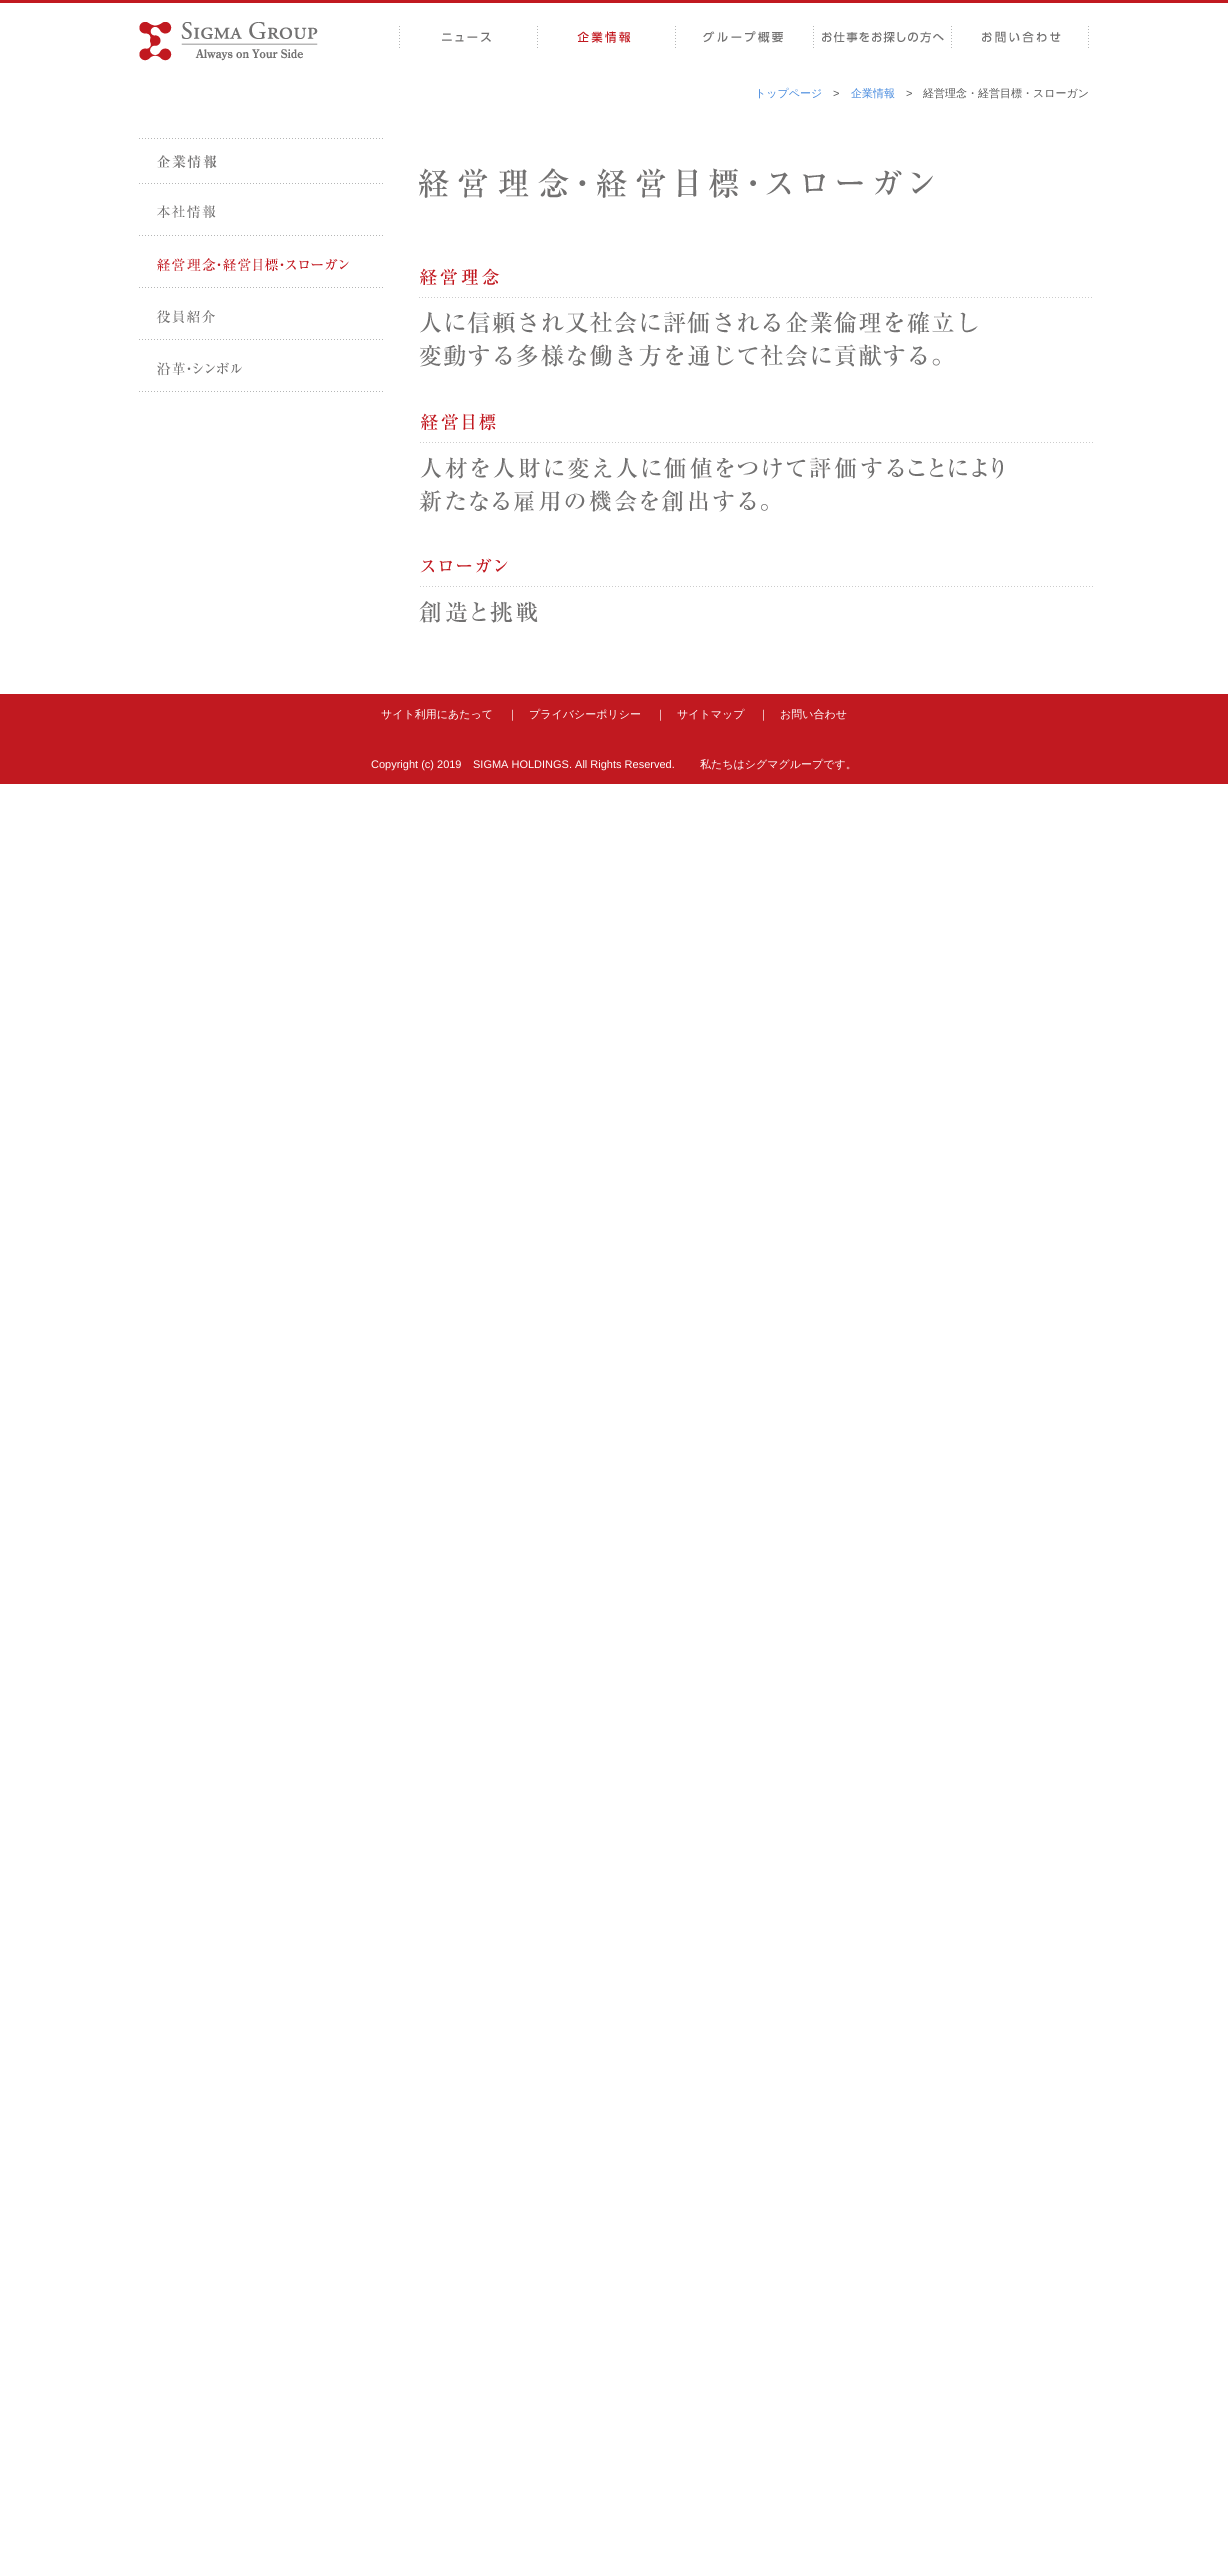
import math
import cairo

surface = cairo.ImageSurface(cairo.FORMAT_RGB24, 1228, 2575)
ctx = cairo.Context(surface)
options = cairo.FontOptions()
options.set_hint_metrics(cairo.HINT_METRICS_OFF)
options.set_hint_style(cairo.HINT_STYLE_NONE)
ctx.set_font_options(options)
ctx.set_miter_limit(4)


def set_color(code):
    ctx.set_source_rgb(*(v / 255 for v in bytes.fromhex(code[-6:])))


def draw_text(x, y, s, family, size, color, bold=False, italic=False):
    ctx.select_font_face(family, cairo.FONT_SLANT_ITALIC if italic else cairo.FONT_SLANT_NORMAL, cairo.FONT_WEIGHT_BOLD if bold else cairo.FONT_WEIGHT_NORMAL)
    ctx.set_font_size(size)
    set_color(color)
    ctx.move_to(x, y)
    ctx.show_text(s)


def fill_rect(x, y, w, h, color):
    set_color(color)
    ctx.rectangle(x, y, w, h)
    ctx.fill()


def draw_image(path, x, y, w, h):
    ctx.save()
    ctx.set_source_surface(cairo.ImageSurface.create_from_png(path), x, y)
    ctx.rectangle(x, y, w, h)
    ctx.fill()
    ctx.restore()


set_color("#ffffff")
ctx.paint()
fill_rect(0, 0, 1228, 3, "#c11920")
draw_image("assets/img1.png", 139, 22, 179, 39)
draw_image("assets/img2.png", 399, 26, 139, 22)
draw_image("assets/img3.png", 577, 26, 99, 22)
draw_image("assets/img4.png", 703, 26, 111, 22)
draw_image("assets/img5.png", 822, 26, 130, 22)
draw_image("assets/img6.png", 982, 26, 107, 22)
draw_text(755, 97, "トップページ", "WenQuanYi Zen Hei Medium", 11, "#4488dd")
draw_text(833, 97, ">", "Liberation Sans", 11, "#555555")
draw_text(851, 97, "企業情報", "WenQuanYi Zen Hei Medium", 11, "#4488dd")
draw_text(906, 97, ">", "Liberation Sans", 11, "#555555")
draw_text(923, 97, "経営理念・経営目標・スローガン", "WenQuanYi Zen Hei Medium", 11, "#555555")
draw_image("assets/img7.png", 139, 138, 244, 46)
draw_image("assets/img8.png", 139, 205, 244, 31)
draw_image("assets/img9.png", 139, 258, 244, 30)
draw_image("assets/img10.png", 139, 310, 244, 30)
draw_image("assets/img11.png", 139, 362, 244, 30)
draw_image("assets/img12.png", 419, 168, 514, 30)
draw_image("assets/img13.png", 419, 268, 673, 99)
draw_image("assets/img14.png", 419, 413, 674, 99)
draw_image("assets/img15.png", 419, 558, 674, 65)
fill_rect(0, 694, 1228, 90, "#c11920")
draw_text(381, 718, "サイト利用にあたって", "WenQuanYi Zen Hei Medium", 11, "#ffffff")
draw_text(507, 718, "｜", "WenQuanYi Zen Hei Medium", 11, "#ffffff")
draw_text(529, 718, "プライバシーポリシー", "WenQuanYi Zen Hei Medium", 11, "#ffffff")
draw_text(655, 718, "｜", "WenQuanYi Zen Hei Medium", 11, "#ffffff")
draw_text(677, 718, "サイトマップ", "WenQuanYi Zen Hei Medium", 11, "#ffffff")
draw_text(758, 718, "｜", "WenQuanYi Zen Hei Medium", 11, "#ffffff")
draw_text(780, 718, "お問い合わせ", "WenQuanYi Zen Hei Medium", 11, "#ffffff")
draw_text(371, 768, "Copyright (c) 2019", "Liberation Sans", 11, "#ffffff")
draw_text(473, 768, "SIGMA HOLDINGS. All Rights Reserved.", "Liberation Sans", 11, "#ffffff")
draw_text(700, 768, "私たちはシグマグループです。", "WenQuanYi Zen Hei Medium", 11, "#ffffff")
surface.write_to_png("output.png")
